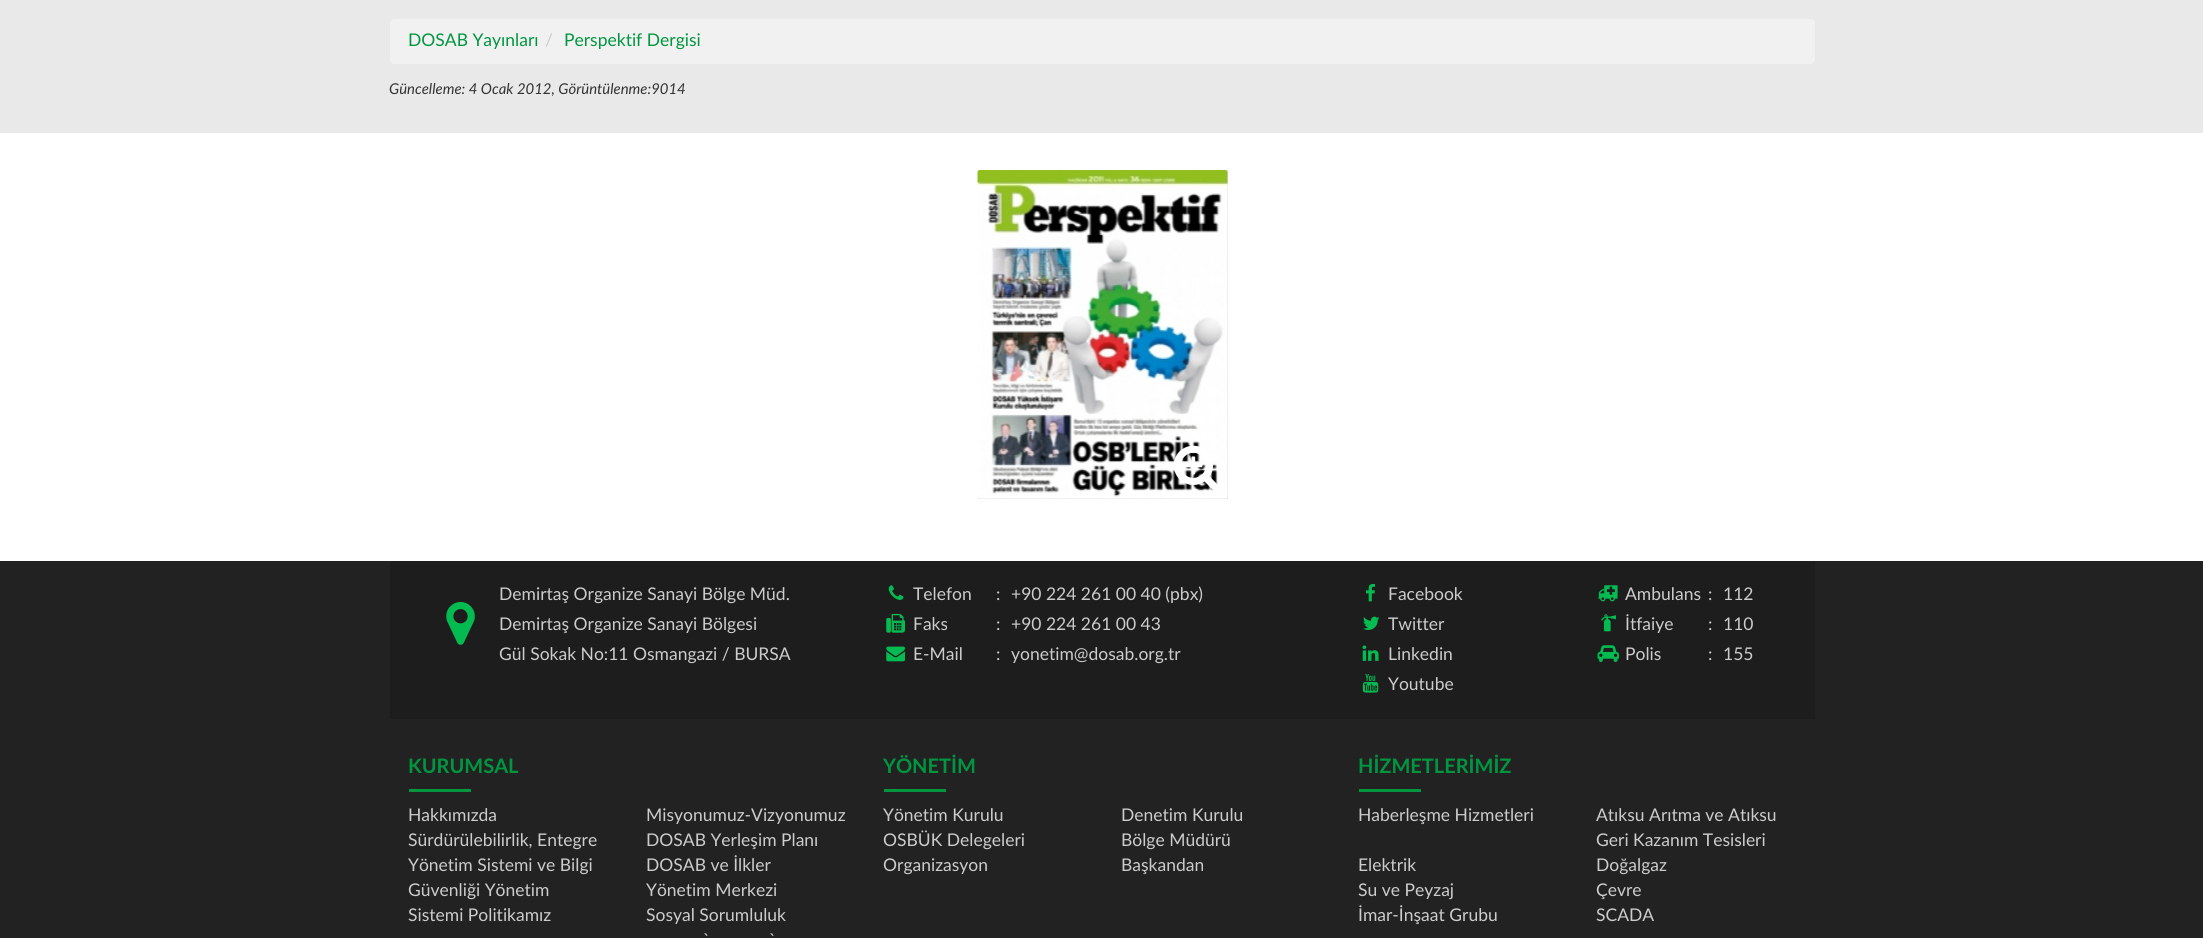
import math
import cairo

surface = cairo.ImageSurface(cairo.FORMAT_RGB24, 2203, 938)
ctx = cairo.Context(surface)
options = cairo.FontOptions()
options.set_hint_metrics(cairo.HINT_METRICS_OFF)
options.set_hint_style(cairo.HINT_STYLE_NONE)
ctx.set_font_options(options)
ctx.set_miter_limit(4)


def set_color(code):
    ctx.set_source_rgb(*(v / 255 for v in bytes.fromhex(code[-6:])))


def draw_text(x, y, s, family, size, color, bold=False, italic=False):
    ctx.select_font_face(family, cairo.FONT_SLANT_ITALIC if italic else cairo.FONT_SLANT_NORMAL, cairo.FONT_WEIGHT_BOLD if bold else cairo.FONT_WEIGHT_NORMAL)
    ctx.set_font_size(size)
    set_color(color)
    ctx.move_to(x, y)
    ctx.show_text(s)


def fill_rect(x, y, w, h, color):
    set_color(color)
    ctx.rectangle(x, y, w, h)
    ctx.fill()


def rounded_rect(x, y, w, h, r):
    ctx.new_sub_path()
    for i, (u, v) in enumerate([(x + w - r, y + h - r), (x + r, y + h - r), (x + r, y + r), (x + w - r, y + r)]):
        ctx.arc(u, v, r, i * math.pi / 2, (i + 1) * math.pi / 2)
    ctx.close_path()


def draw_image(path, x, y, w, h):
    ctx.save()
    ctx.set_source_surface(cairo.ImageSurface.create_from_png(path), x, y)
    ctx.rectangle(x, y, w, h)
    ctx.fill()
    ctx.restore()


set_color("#ffffff")
ctx.paint()
fill_rect(0, 0, 2203, 133, "#e9e9e9")
set_color("#f1f1f1")
rounded_rect(390, 19, 1425, 45, 5)
ctx.fill()
draw_text(408, 46, "DOSAB Yayınları", "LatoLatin", 17.5, "#009640")
draw_text(545, 46, "/", "LatoLatin", 17.5, "#cccccc")
draw_text(564, 46, "Perspektif Dergisi", "LatoLatin", 17.5, "#009640")
draw_text(389, 94, "Güncelleme: 4 Ocak 2012, Görüntülenme:9014", "LatoLatin", 14.9, "#333333", italic=True)
fill_rect(978, 170, 250, 329, "#e1e1e1")
draw_image("assets/img1.png", 977, 170, 251, 329)
draw_image("assets/img2.png", 1174, 445, 44, 46)
fill_rect(0, 561, 2203, 377, "#222222")
fill_rect(390, 561, 1425, 158, "#1d1d1d")
draw_image("assets/img3.png", 446, 602, 29, 43)
draw_text(499, 600, "Demirtaş Organize Sanayi Bölge Müd.", "LatoLatin", 17.5, "#cccccc")
draw_text(499, 630, "Demirtaş Organize Sanayi Bölgesi", "LatoLatin", 17.5, "#cccccc")
draw_text(499, 660, "Gül Sokak No:11 Osmangazi / BURSA", "LatoLatin", 17.5, "#cccccc")
draw_image("assets/img4.png", 888, 585, 16, 15)
draw_text(913, 600, "Telefon", "LatoLatin", 17.5, "#cccccc")
draw_text(996, 600, ":", "LatoLatin", 17.5, "#cccccc")
draw_text(1011, 600, "+90 224 261 00 40 (pbx)", "LatoLatin", 17.5, "#cccccc")
draw_image("assets/img5.png", 886, 613, 19, 20)
draw_text(913, 630, "Faks", "LatoLatin", 17.5, "#cccccc")
draw_text(996, 630, ":", "LatoLatin", 17.5, "#cccccc")
draw_text(1011, 630, "+90 224 261 00 43", "LatoLatin", 17.5, "#cccccc")
draw_image("assets/img6.png", 886, 646, 19, 16)
draw_text(913, 660, "E-Mail", "LatoLatin", 17.5, "#cccccc")
draw_text(996, 660, ":", "LatoLatin", 17.5, "#cccccc")
draw_text(1011, 660, "yonetim@dosab.org.tr", "LatoLatin", 17.5, "#cccccc")
draw_image("assets/img7.png", 1366, 583, 10, 19)
draw_text(1388, 600, "Facebook", "LatoLatin", 17.5, "#cccccc")
draw_image("assets/img8.png", 1363, 616, 17, 14)
draw_text(1388, 630, "Twitter", "LatoLatin", 17.5, "#cccccc")
draw_image("assets/img9.png", 1362, 645, 17, 16)
draw_text(1388, 660, "Linkedin", "LatoLatin", 17.5, "#cccccc")
draw_image("assets/img10.png", 1362, 673, 17, 20)
draw_text(1388, 690, "Youtube", "LatoLatin", 17.5, "#cccccc")
draw_image("assets/img11.png", 1598, 585, 20, 17)
draw_text(1625, 600, "Ambulans", "LatoLatin", 17.5, "#cccccc")
draw_text(1708, 600, ":", "LatoLatin", 17.5, "#cccccc")
draw_text(1723, 600, "112", "LatoLatin", 17.5, "#cccccc")
draw_image("assets/img12.png", 1601, 614, 15, 18)
draw_text(1625, 630, "İtfaiye", "LatoLatin", 17.5, "#cccccc")
draw_text(1708, 630, ":", "LatoLatin", 17.5, "#cccccc")
draw_text(1723, 630, "110", "LatoLatin", 17.5, "#cccccc")
draw_image("assets/img13.png", 1597, 645, 22, 17)
draw_text(1625, 660, "Polis", "LatoLatin", 17.5, "#cccccc")
draw_text(1708, 660, ":", "LatoLatin", 17.5, "#cccccc")
draw_text(1723, 660, "155", "LatoLatin", 17.5, "#cccccc")
draw_text(408, 773, "KURUMSAL", "LatoLatin", 20, "#009640", bold=True)
fill_rect(409, 789, 62, 3, "#009640")
draw_text(408, 821, "Hakkımızda", "LatoLatin", 17.5, "#cccccc")
draw_text(646, 821, "Misyonumuz-Vizyonumuz", "LatoLatin", 17.5, "#cccccc")
draw_text(408, 846, "Sürdürülebilirlik, Entegre", "LatoLatin", 17.5, "#cccccc")
draw_text(408, 871, "Yönetim Sistemi ve Bilgi", "LatoLatin", 17.5, "#cccccc")
draw_text(408, 896, "Güvenliği Yönetim", "LatoLatin", 17.5, "#cccccc")
draw_text(408, 921, "Sistemi Politikamız", "LatoLatin", 17.5, "#cccccc")
draw_text(646, 846, "DOSAB Yerleşim Planı", "LatoLatin", 17.5, "#cccccc")
draw_text(646, 871, "DOSAB ve İlkler", "LatoLatin", 17.5, "#cccccc")
draw_text(646, 896, "Yönetim Merkezi", "LatoLatin", 17.5, "#cccccc")
draw_text(646, 921, "Sosyal Sorumluluk", "LatoLatin", 17.5, "#cccccc")
draw_text(703, 946, "`", "LatoLatin", 17.5, "#cccccc")
draw_text(769, 946, "`", "LatoLatin", 17.5, "#cccccc")
draw_text(883, 773, "YÖNETİM", "LatoLatin", 20, "#009640", bold=True)
fill_rect(884, 789, 62, 3, "#009640")
draw_text(883, 821, "Yönetim Kurulu", "LatoLatin", 17.5, "#cccccc")
draw_text(1121, 821, "Denetim Kurulu", "LatoLatin", 17.5, "#cccccc")
draw_text(883, 846, "OSBÜK Delegeleri", "LatoLatin", 17.5, "#cccccc")
draw_text(1121, 846, "Bölge Müdürü", "LatoLatin", 17.5, "#cccccc")
draw_text(883, 871, "Organizasyon", "LatoLatin", 17.5, "#cccccc")
draw_text(1121, 871, "Başkandan", "LatoLatin", 17.5, "#cccccc")
draw_text(1358, 773, "HİZMETLERİMİZ", "LatoLatin", 20, "#009640", bold=True)
fill_rect(1359, 789, 62, 3, "#009640")
draw_text(1358, 821, "Haberleşme Hizmetleri", "LatoLatin", 17.5, "#cccccc")
draw_text(1596, 821, "Atıksu Arıtma ve Atıksu", "LatoLatin", 17.5, "#cccccc")
draw_text(1596, 846, "Geri Kazanım Tesisleri", "LatoLatin", 17.5, "#cccccc")
draw_text(1358, 871, "Elektrik", "LatoLatin", 17.5, "#cccccc")
draw_text(1596, 871, "Doğalgaz", "LatoLatin", 17.5, "#cccccc")
draw_text(1358, 896, "Su ve Peyzaj", "LatoLatin", 17.5, "#cccccc")
draw_text(1596, 896, "Çevre", "LatoLatin", 17.5, "#cccccc")
draw_text(1358, 921, "İmar-İnşaat Grubu", "LatoLatin", 17.5, "#cccccc")
draw_text(1596, 921, "SCADA", "LatoLatin", 17.5, "#cccccc")
surface.write_to_png("output.png")
